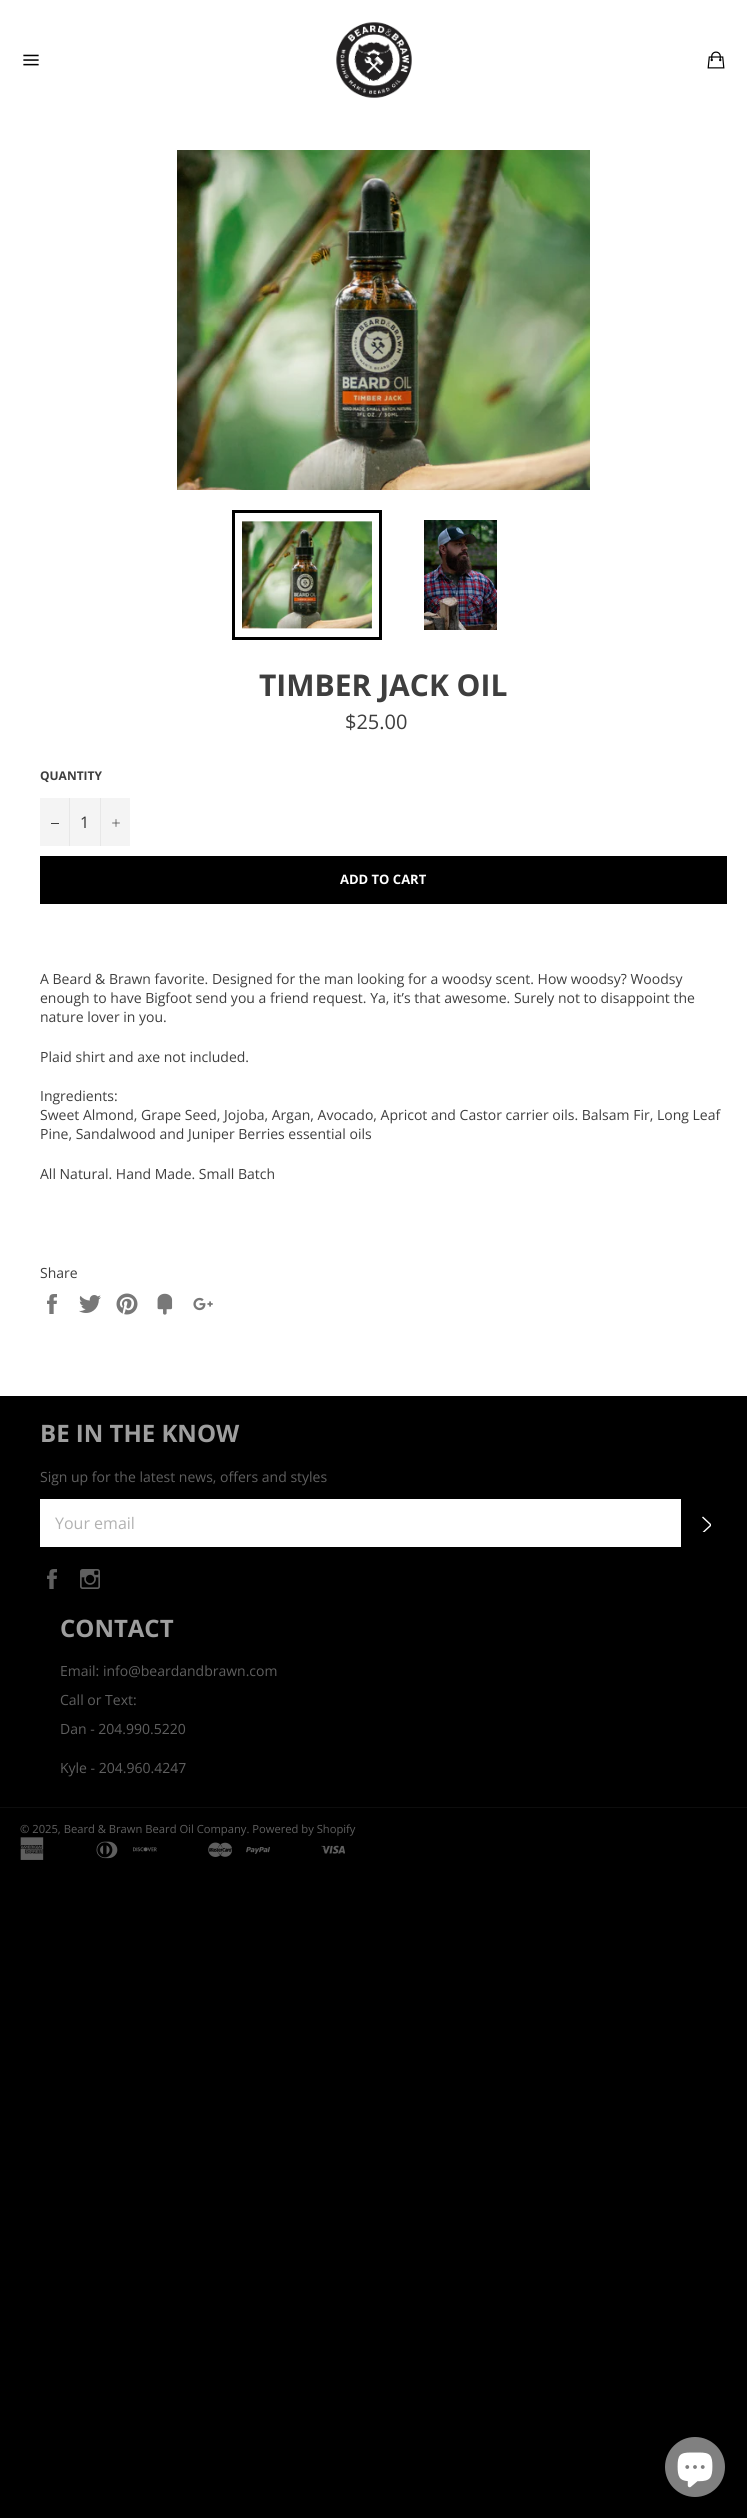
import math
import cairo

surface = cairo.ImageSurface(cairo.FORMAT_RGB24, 747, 2518)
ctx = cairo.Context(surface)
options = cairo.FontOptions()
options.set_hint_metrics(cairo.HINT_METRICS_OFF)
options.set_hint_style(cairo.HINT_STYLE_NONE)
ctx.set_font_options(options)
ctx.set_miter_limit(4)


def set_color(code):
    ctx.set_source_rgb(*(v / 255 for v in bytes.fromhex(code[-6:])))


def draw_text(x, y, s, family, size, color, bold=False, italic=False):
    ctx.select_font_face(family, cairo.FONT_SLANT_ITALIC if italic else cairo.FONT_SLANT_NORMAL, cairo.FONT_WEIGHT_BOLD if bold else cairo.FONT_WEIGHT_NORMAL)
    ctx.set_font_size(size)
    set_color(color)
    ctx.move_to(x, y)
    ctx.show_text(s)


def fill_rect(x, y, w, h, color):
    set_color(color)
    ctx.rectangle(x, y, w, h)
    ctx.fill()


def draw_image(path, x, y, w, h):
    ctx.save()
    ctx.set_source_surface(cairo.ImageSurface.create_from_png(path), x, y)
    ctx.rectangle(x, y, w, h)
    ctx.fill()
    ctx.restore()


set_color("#000000")
ctx.paint()
fill_rect(0, 0, 747, 1396, "#ffffff")
draw_image("assets/img1.png", 23, 54, 16, 12)
draw_image("assets/img2.png", 336, 22, 76, 76)
draw_image("assets/img3.png", 707, 51, 18, 18)
draw_image("assets/img4.png", 177, 150, 413, 340)
draw_image("assets/img5.png", 242, 521, 130, 108)
ctx.rectangle(233.5, 511.5, 147, 127)
set_color("#000000")
ctx.set_line_width(3)
ctx.stroke()
draw_image("assets/img6.png", 424, 520, 73, 110)
draw_text(259, 696, "TIMBER JACK OIL", "Open Sans", 30, "#3e3e3e", bold=True)
draw_text(345, 729, "$25.00", "Open Sans", 20, "#3e3e3e")
draw_text(40, 780, "QUANTITY", "Open Sans", 12, "#3e3e3e", bold=True)
fill_rect(40, 798, 90, 48, "#f4f4f4")
fill_rect(69, 798, 1, 48, "#e7e7e7")
fill_rect(51, 823, 8, 1, "#3e3e3e")
draw_text(80, 828, "1", "Open Sans", 16, "#333333")
fill_rect(100, 798, 1, 48, "#e7e7e7")
draw_image("assets/img7.png", 112, 819, 8, 8)
fill_rect(40, 856, 687, 48, "#000000")
draw_text(340, 884, "ADD TO CART", "Open Sans", 13, "#ffffff", bold=True)
draw_text(40, 984, "A Beard & Brawn favorite. Designed for the man looking for a woodsy scent. How woodsy? Woodsy", "Open Sans", 14, "#3e3e3e")
draw_text(40, 1003, "enough to have Bigfoot send you a friend request. Ya, it’s that awesome. Surely not to disappoint the", "Open Sans", 14, "#3e3e3e")
draw_text(40, 1022, "nature lover in you.", "Open Sans", 14, "#3e3e3e")
draw_text(40, 1062, "Plaid shirt and axe not included.", "Open Sans", 14, "#3e3e3e")
draw_text(40, 1101, "Ingredients:", "Open Sans", 14, "#3e3e3e")
draw_text(40, 1120, "Sweet Almond, Grape Seed, Jojoba, Argan, Avocado, Apricot and Castor carrier oils. Balsam Fir, Long Leaf", "Open Sans", 14, "#3e3e3e")
draw_text(40, 1139, "Pine, Sandalwood and Juniper Berries essential oils", "Open Sans", 14, "#3e3e3e")
draw_text(40, 1179, "All Natural. Hand Made. Small Batch", "Open Sans", 14, "#3e3e3e")
draw_text(40, 1278, "Share", "Open Sans", 14, "#3e3e3e")
draw_image("assets/img8.png", 47, 1294, 10, 20)
draw_image("assets/img9.png", 79, 1295, 22, 18)
draw_image("assets/img10.png", 116, 1293, 22, 22)
draw_image("assets/img11.png", 157, 1293, 16, 22)
draw_image("assets/img12.png", 193, 1297, 20, 14)
draw_text(40, 1442, "BE IN THE KNOW", "Open Sans", 24, "#9e9e9e", bold=True)
draw_text(40, 1482, "Sign up for the latest news, offers and styles", "Open Sans", 14, "#5f5f5f")
fill_rect(40, 1499, 641, 48, "#ffffff")
draw_text(55, 1529, "Your email", "Open Sans", 16, "#b1b1b1")
ctx.save()
ctx.rectangle(697, 1515, 14, 17)
ctx.clip()
set_color("#ffffff")
ctx.new_path()
ctx.move_to(702, 1517.5)
ctx.line_to(703, 1516.5)
ctx.line_to(712, 1525)
ctx.line_to(703, 1533.5)
ctx.line_to(702, 1532.5)
ctx.line_to(710, 1525)
ctx.close_path()
ctx.fill()
ctx.restore()
draw_image("assets/img13.png", 47, 1569, 10, 20)
draw_image("assets/img14.png", 80, 1569, 20, 20)
draw_text(60, 1637, "CONTACT", "Open Sans", 24, "#9e9e9e", bold=True)
draw_text(60, 1676, "Email: info@beardandbrawn.com", "Open Sans", 14, "#5f5f5f")
draw_text(60, 1705, "Call or Text:", "Open Sans", 14, "#5f5f5f")
draw_text(60, 1734, "Dan - 204.990.5220", "Open Sans", 14, "#5f5f5f")
draw_text(60, 1773, "Kyle - 204.960.4247", "Open Sans", 14, "#5f5f5f")
fill_rect(0, 1807, 747, 1, "#0d0d0d")
draw_text(20, 1833, "© 2025, Beard & Brawn Beard Oil Company. Powered by Shopify", "Open Sans", 11.2, "#5f5f5f")
draw_image("assets/img15.png", 20, 1837, 24, 23)
draw_image("assets/img16.png", 96, 1841, 22, 18)
draw_image("assets/img17.png", 133, 1847, 24, 5)
draw_image("assets/img18.png", 208, 1842, 24, 15)
draw_image("assets/img19.png", 246, 1847, 24, 7)
draw_image("assets/img20.png", 321, 1845, 24, 9)
set_color("#808080")
ctx.arc(695, 2467, 30, 0, 2 * math.pi)
ctx.fill()
draw_image("assets/img21.png", 677, 2452, 36, 36)
surface.write_to_png("output.png")
